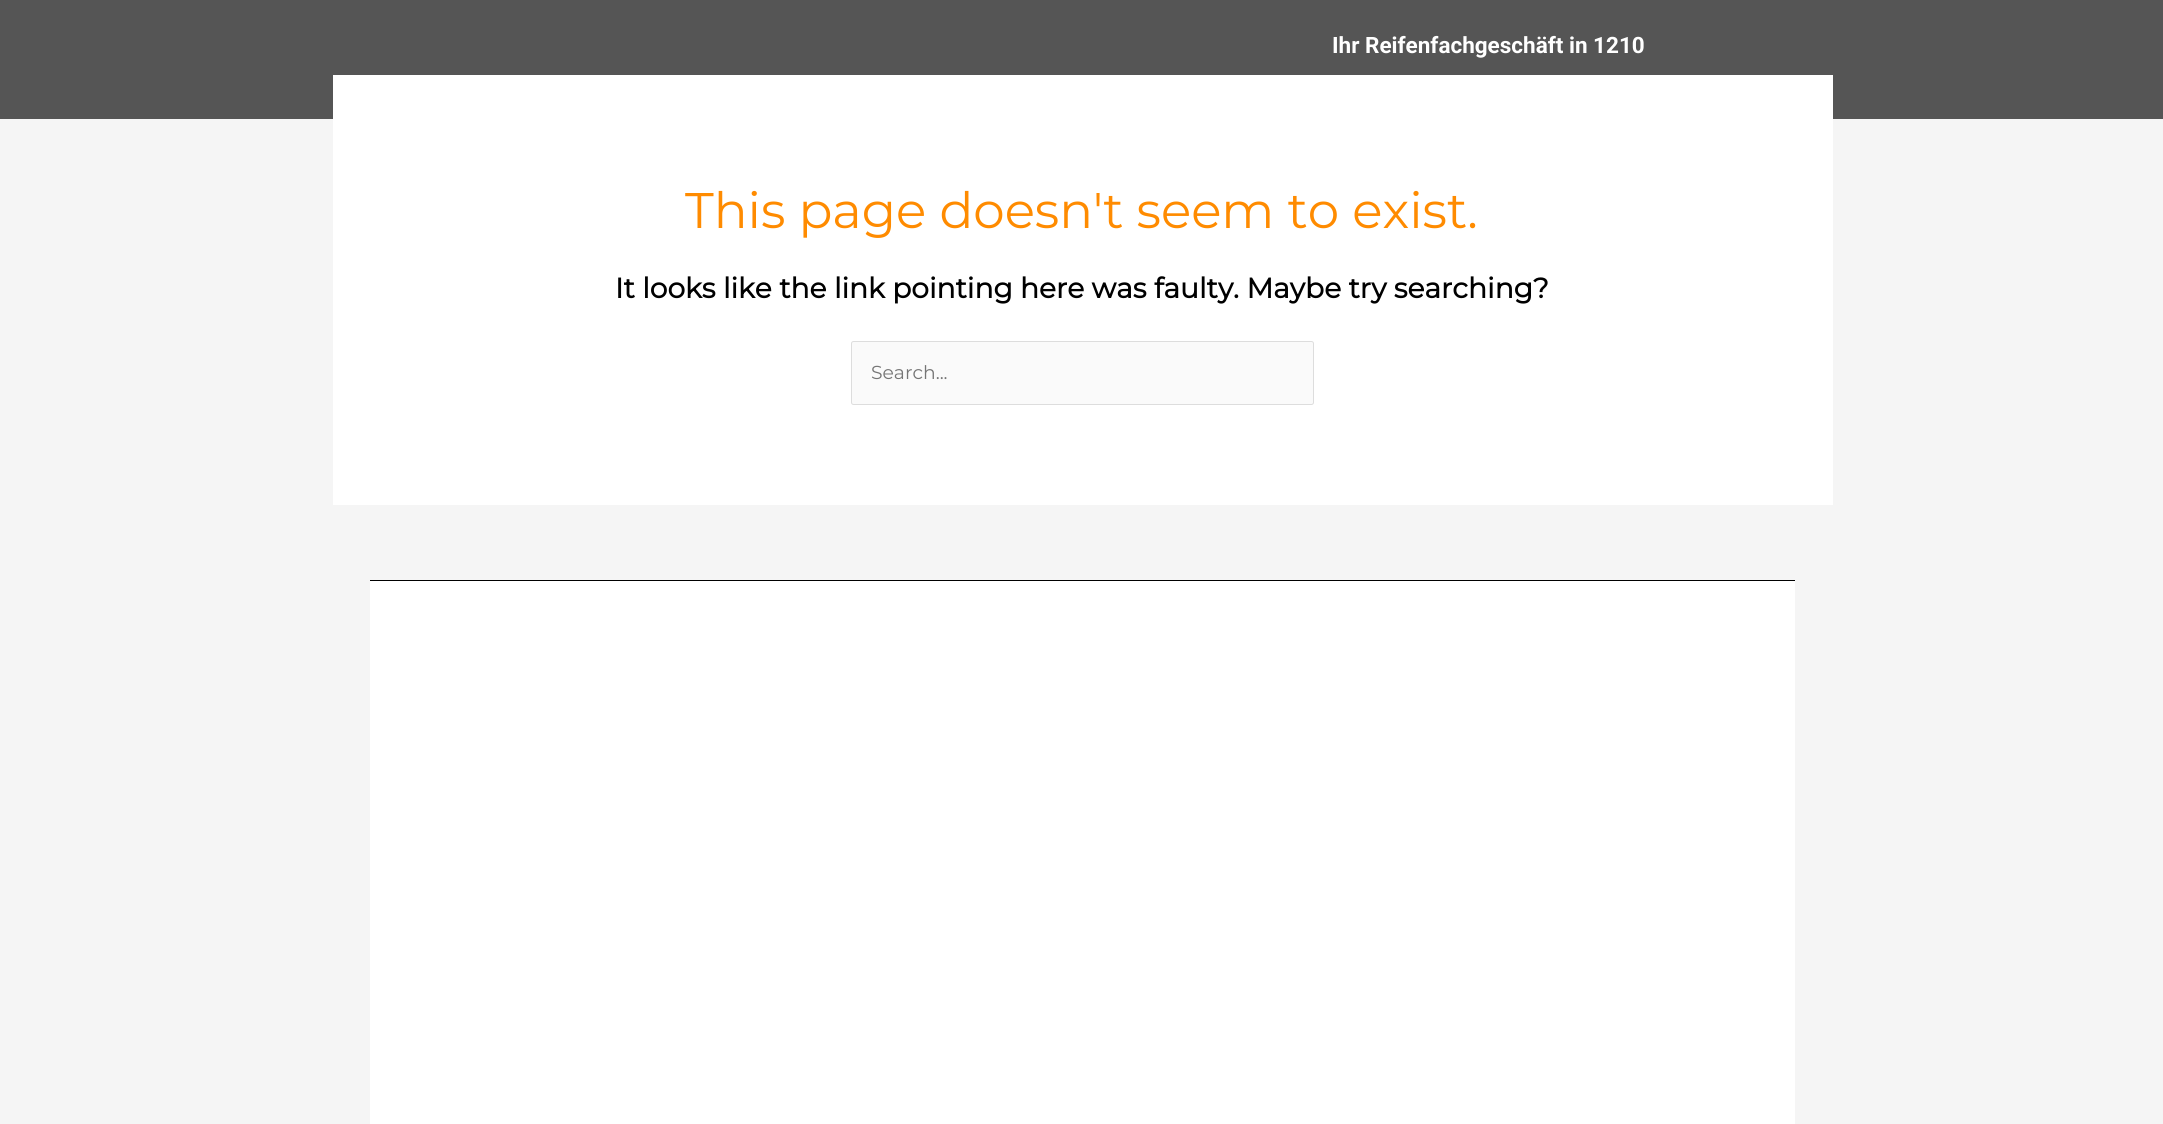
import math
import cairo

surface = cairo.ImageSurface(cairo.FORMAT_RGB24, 2163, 1124)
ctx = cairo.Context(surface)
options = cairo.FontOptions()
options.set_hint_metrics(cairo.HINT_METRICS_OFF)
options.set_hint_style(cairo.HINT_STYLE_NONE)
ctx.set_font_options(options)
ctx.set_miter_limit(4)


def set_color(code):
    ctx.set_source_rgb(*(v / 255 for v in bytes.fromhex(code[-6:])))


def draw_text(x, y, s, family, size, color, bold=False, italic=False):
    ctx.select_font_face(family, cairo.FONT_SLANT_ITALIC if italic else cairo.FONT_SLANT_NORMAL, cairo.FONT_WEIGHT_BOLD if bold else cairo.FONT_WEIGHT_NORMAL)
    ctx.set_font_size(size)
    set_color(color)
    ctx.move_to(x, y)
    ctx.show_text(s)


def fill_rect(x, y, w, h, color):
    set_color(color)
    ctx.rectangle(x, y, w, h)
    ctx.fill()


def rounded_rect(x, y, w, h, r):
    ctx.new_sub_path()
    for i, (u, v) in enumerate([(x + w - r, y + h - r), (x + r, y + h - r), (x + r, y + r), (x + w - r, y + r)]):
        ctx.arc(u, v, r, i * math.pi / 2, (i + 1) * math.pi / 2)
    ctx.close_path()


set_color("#f5f5f5")
ctx.paint()
fill_rect(0, 0, 2163, 119, "#555555")
draw_text(1332, 53, "Ihr Reifenfachgeschäft in 1210", "Roboto", 22.5, "#ffffff", bold=True)
fill_rect(333, 75, 1500, 430, "#ffffff")
draw_text(685, 228, "This page doesn't seem to exist.", "Montserrat Thin", 50, "#ff8b00")
draw_text(615, 298, "It looks like the link pointing here was faulty. Maybe try searching?", "Montserrat", 28.1, "#000000", bold=True)
set_color("#fafafa")
rounded_rect(851.5, 341.5, 462, 63, 2)
ctx.fill_preserve()
set_color("#dddddd")
ctx.set_line_width(1)
ctx.stroke()
draw_text(871, 379, "Search...", "Montserrat Thin", 18.75, "#757575")
fill_rect(370, 581, 1425, 543, "#ffffff")
fill_rect(370, 580, 1425, 1, "#000000")
surface.write_to_png("output.png")
